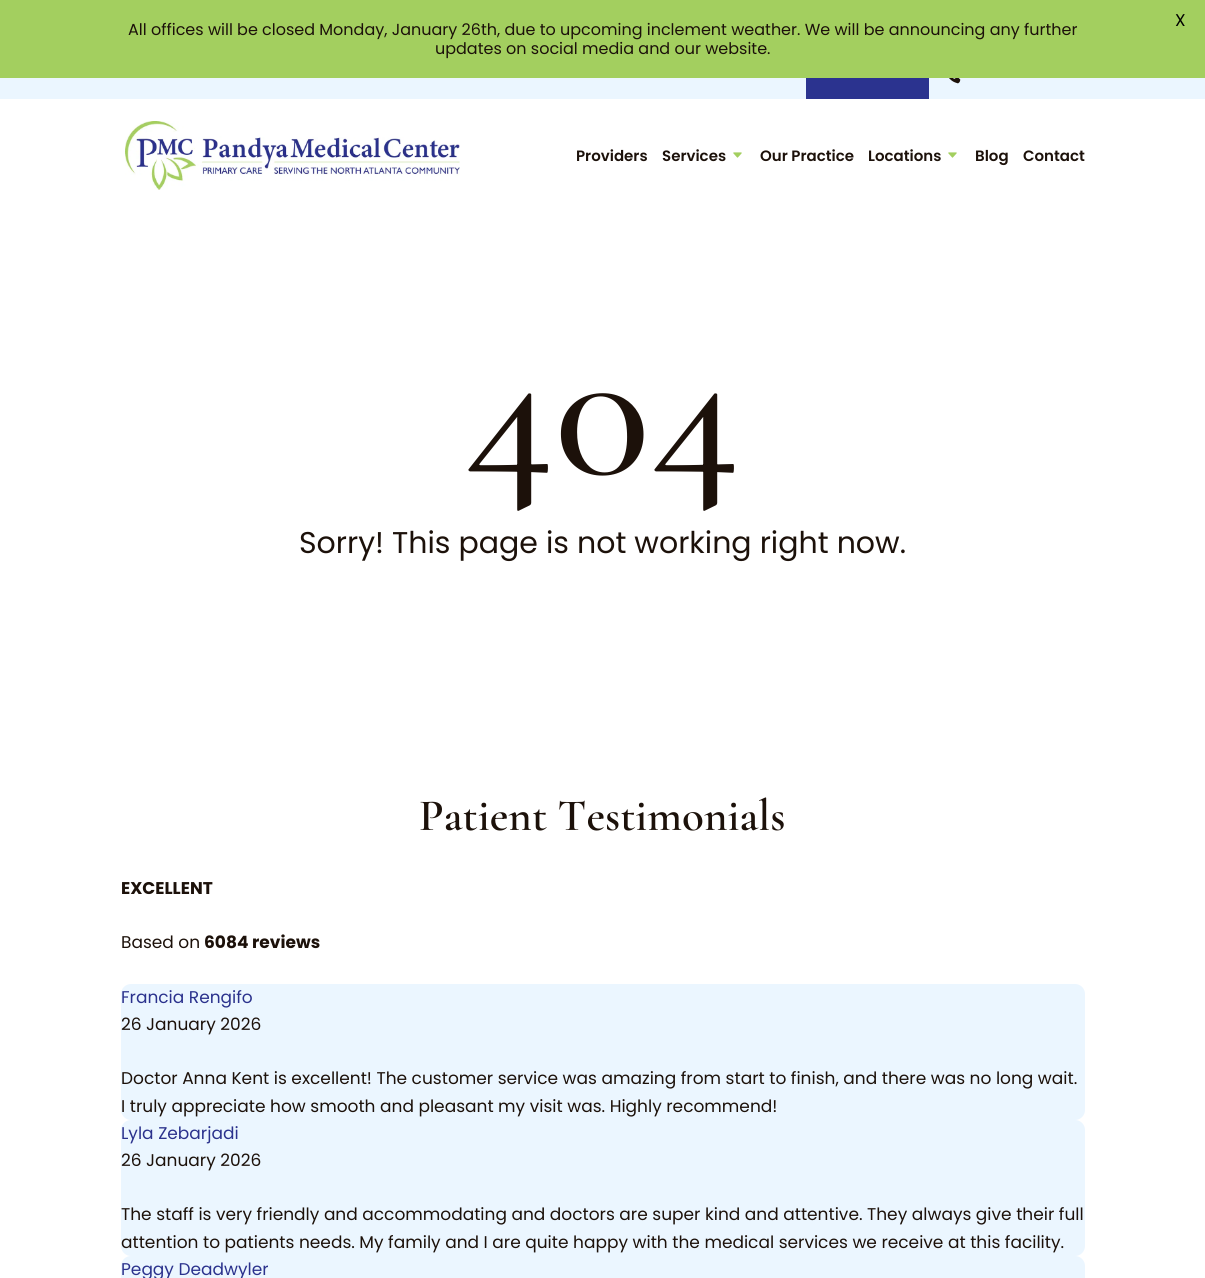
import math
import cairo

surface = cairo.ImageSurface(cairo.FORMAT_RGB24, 1205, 1278)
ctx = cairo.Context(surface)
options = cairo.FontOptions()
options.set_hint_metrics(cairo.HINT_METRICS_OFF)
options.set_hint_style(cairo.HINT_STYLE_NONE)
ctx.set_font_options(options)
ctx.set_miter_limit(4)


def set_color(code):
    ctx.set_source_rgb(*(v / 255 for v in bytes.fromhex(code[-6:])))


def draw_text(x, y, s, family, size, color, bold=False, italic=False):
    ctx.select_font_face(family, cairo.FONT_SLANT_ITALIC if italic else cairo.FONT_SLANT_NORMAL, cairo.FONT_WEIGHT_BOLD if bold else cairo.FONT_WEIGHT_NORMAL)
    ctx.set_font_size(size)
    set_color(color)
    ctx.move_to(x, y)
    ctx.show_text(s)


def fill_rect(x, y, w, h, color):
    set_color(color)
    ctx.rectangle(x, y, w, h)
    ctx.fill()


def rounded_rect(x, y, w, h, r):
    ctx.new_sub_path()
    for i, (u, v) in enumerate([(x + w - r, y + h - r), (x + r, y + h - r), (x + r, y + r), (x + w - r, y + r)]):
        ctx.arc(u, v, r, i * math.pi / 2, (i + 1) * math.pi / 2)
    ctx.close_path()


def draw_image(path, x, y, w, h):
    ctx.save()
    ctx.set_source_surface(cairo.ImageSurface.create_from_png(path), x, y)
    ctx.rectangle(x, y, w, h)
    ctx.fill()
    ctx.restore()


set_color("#ffffff")
ctx.paint()
fill_rect(0, 0, 1205, 78, "#a3cf5f")
draw_text(1175, 26, "X", "Poppins", 17, "#000000")
draw_text(128, 35, "All offices will be closed Monday, January 26th, due to upcoming inclement weather. We will be announcing any further", "Poppins", 16, "#1c110a")
draw_text(435, 54, "updates on social media and our website.", "Poppins", 16, "#1c110a")
fill_rect(0, 78, 1205, 21, "#ebf6ff")
fill_rect(806, 78, 123, 21, "#2b338f")
draw_image("assets/img1.png", 949, 78, 12, 6)
draw_image("assets/img2.png", 125, 121, 335, 69)
draw_text(576, 161, "Providers", "Poppins SemiBold", 15, "#1c110a")
draw_text(662, 161, "Services", "Poppins SemiBold", 15, "#1c110a")
draw_image("assets/img3.png", 733, 152, 9, 6)
draw_text(760, 161, "Our Practice", "Poppins SemiBold", 15, "#1c110a")
draw_text(868, 161, "Locations", "Poppins SemiBold", 15, "#1c110a")
draw_image("assets/img3.png", 948, 152, 9, 6)
draw_text(975, 161, "Blog", "Poppins SemiBold", 15, "#1c110a")
draw_text(1023, 161, "Contact", "Poppins SemiBold", 15, "#1c110a")
draw_text(464, 473, "404", "Cormorant Garamond Light", 200, "#1c110a")
draw_text(299, 553, "Sorry! This page is not working right now.", "Poppins", 30, "#1c110a")
draw_text(419, 830, "Patient Testimonials", "Cormorant Garamond SemiBold", 45, "#1c110a")
draw_text(121, 894, "EXCELLENT", "Poppins", 17, "#1c110a", bold=True)
draw_text(121, 948, "Based on", "Poppins", 17, "#1c110a")
draw_text(204, 948, "6084 reviews", "Poppins", 17, "#1c110a", bold=True)
set_color("#ebf6ff")
rounded_rect(121, 984, 964, 136, 10)
ctx.fill()
draw_text(121, 1003, "Francia Rengifo", "Poppins", 17, "#2b328d")
draw_text(121, 1030, "26 January 2026", "Poppins", 17, "#1c110a")
draw_text(121, 1084, "Doctor Anna Kent is excellent! The customer service was amazing from start to finish, and there was no long wait.", "Poppins", 17, "#1c110a")
draw_text(121, 1112, "I truly appreciate how smooth and pleasant my visit was. Highly recommend!", "Poppins", 17, "#1c110a")
set_color("#ebf6ff")
rounded_rect(121, 1120, 964, 136, 10)
ctx.fill()
draw_text(121, 1139, "Lyla Zebarjadi", "Poppins", 17, "#2b328d")
draw_text(121, 1166, "26 January 2026", "Poppins", 17, "#1c110a")
draw_text(121, 1220, "The staff is very friendly and accommodating and doctors are super kind and attentive. They always give their full", "Poppins", 17, "#1c110a")
draw_text(121, 1248, "attention to patients needs. My family and I are quite happy with the medical services we receive at this facility.", "Poppins", 17, "#1c110a")
set_color("#ebf6ff")
rounded_rect(121, 1256, 964, 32, 10)
ctx.fill()
draw_text(121, 1275, "Peggy Deadwyler", "Poppins", 17, "#2b328d")
surface.write_to_png("output.png")
